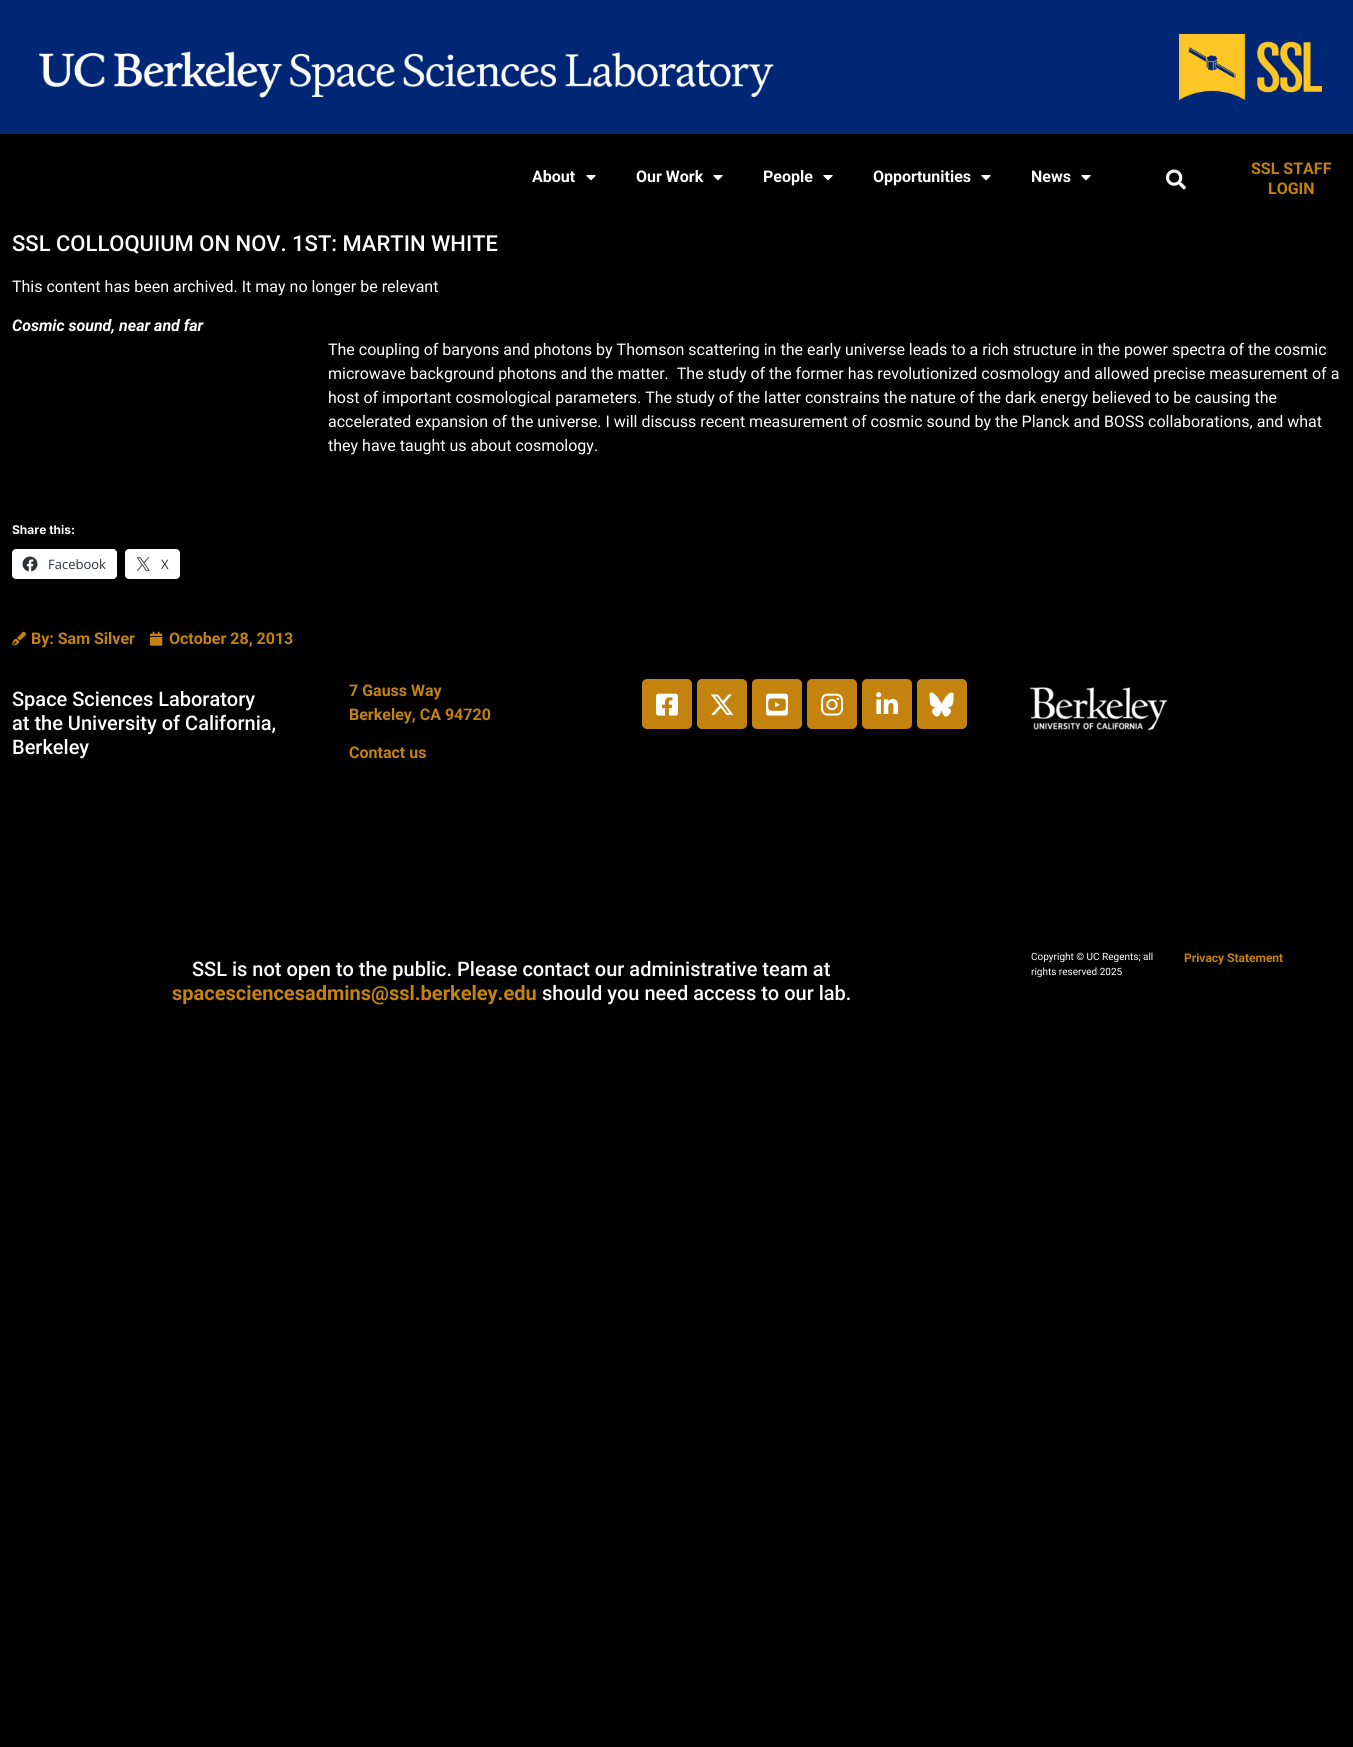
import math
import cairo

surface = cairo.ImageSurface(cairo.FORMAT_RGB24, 1353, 1747)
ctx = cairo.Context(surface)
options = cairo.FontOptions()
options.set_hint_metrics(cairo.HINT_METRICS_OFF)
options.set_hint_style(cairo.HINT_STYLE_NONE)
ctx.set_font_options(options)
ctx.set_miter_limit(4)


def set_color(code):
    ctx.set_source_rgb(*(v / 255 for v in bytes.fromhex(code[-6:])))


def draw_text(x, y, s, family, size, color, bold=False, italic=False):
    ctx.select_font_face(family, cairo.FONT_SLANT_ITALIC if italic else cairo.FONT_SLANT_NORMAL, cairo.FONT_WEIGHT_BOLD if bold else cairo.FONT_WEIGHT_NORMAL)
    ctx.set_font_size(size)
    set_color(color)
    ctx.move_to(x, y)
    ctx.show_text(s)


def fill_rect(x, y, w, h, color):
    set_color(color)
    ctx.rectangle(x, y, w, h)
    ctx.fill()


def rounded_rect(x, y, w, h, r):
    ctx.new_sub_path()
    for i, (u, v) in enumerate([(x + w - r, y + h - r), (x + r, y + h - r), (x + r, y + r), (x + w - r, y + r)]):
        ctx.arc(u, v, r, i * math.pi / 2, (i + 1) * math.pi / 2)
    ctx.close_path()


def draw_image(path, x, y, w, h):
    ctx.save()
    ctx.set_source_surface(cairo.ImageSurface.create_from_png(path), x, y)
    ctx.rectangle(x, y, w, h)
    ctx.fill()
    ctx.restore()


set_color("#000000")
ctx.paint()
fill_rect(0, 0, 1353, 134, "#002676")
draw_image("assets/img1.png", 39, 51, 735, 47)
draw_image("assets/img2.png", 1179, 34, 143, 66)
draw_text(532, 182, "About", "Roboto", 16, "#ffffff", bold=True)
draw_image("assets/img3.png", 586, 175, 10, 6)
draw_text(636, 182, "Our Work", "Roboto", 16, "#ffffff", bold=True)
draw_image("assets/img3.png", 713, 175, 10, 6)
draw_text(763, 182, "People", "Roboto", 16, "#ffffff", bold=True)
draw_image("assets/img3.png", 823, 175, 10, 6)
draw_text(873, 182, "Opportunities", "Roboto", 16, "#ffffff", bold=True)
draw_image("assets/img3.png", 981, 175, 10, 6)
draw_text(1031, 182, "News", "Roboto", 16, "#ffffff", bold=True)
draw_image("assets/img3.png", 1081, 175, 10, 6)
draw_image("assets/img4.png", 1166, 169, 20, 21)
draw_text(1251, 174, "SSL STAFF", "Roboto", 16, "#c4820e", bold=True)
draw_text(1268, 194, "LOGIN", "Roboto", 16, "#c4820e", bold=True)
draw_text(12, 251, "SSL COLLOQUIUM ON NOV. 1ST: MARTIN WHITE", "Roboto Medium", 22, "#ffffff")
draw_text(12, 292, "This content has been archived. It may no longer be relevant", "Roboto", 16, "#ffffff")
draw_text(12, 331, "Cosmic sound, near and far", "Roboto", 16, "#ffffff", bold=True, italic=True)
draw_text(328, 355, "The coupling of baryons and photons by Thomson scattering in the early universe leads to a rich structure in the power spectra of the cosmic", "Roboto", 16, "#ffffff")
draw_text(328, 379, "microwave background photons and the matter.  The study of the former has revolutionized cosmology and allowed precise measurement of a", "Roboto", 16, "#ffffff")
draw_text(328, 403, "host of important cosmological parameters. The study of the latter constrains the nature of the dark energy believed to be causing the", "Roboto", 16, "#ffffff")
draw_text(328, 427, "accelerated expansion of the universe. I will discuss recent measurement of cosmic sound by the Planck and BOSS collaborations, and what", "Roboto", 16, "#ffffff")
draw_text(328, 451, "they have taught us about cosmology.", "Roboto", 16, "#ffffff")
draw_text(12, 534, "Share this:", "Inter", 12, "#ffffff", bold=True)
rounded_rect(12, 549, 105, 30, 4)
ctx.fill()
draw_image("assets/img5.png", 22, 556, 16, 16)
draw_text(48, 569, "Facebook", "Open Sans", 13, "#2c3338")
set_color("#ffffff")
rounded_rect(125, 549, 55, 30, 4)
ctx.fill()
draw_image("assets/img6.png", 136, 557, 14, 14)
draw_text(161, 569, "X", "Open Sans", 13, "#2c3338")
draw_image("assets/img7.png", 12, 631, 14, 15)
draw_text(31, 644, "By: Sam Silver", "Roboto", 16, "#c4820e", bold=True)
draw_image("assets/img8.png", 150, 631, 13, 15)
draw_text(169, 644, "October 28, 2013", "Roboto", 16, "#c4820e", bold=True)
draw_text(12, 706, "Space Sciences Laboratory", "Roboto Medium", 20, "#ffffff")
draw_text(12, 730, "at the University of California,", "Roboto Medium", 20, "#ffffff")
draw_text(12, 754, "Berkeley", "Roboto Medium", 20, "#ffffff")
draw_text(349, 696, "7 Gauss Way", "Roboto", 16, "#c4820e", bold=True)
draw_text(349, 720, "Berkeley, CA 94720", "Roboto", 16, "#c4820e", bold=True)
draw_text(349, 758, "Contact us", "Roboto", 16, "#c4820e", bold=True)
rounded_rect(642, 679, 50, 50, 5)
ctx.fill()
draw_image("assets/img9.png", 656, 693, 22, 23)
rounded_rect(697, 679, 50, 50, 5)
ctx.fill()
draw_image("assets/img10.png", 711, 694, 23, 21)
rounded_rect(752, 679, 50, 50, 5)
ctx.fill()
draw_image("assets/img11.png", 766, 693, 22, 23)
rounded_rect(807, 679, 50, 50, 5)
ctx.fill()
draw_image("assets/img12.png", 821, 693, 22, 23)
rounded_rect(862, 679, 50, 50, 5)
ctx.fill()
draw_image("assets/img13.png", 876, 692, 22, 22)
rounded_rect(917, 679, 50, 50, 5)
ctx.fill()
draw_image("assets/img14.png", 929, 692, 25, 25)
draw_image("assets/img15.png", 1029, 687, 139, 44)
draw_text(1031, 960, "Copyright © UC Regents; all", "Roboto", 10, "#ffffff")
draw_text(1031, 975, "rights reserved 2025", "Roboto", 10, "#ffffff")
draw_text(1184, 962, "Privacy Statement", "Roboto", 12, "#c4820e", bold=True)
draw_text(192, 976, "SSL is not open to the public. Please contact our administrative team at", "Roboto Medium", 20, "#ffffff")
draw_text(172, 1000, "spacesciencesadmins@ssl.berkeley.edu", "Roboto", 20, "#c4820e", bold=True)
draw_text(542, 1000, "should you need access to our lab.", "Roboto Medium", 20, "#ffffff")
surface.write_to_png("output.png")
